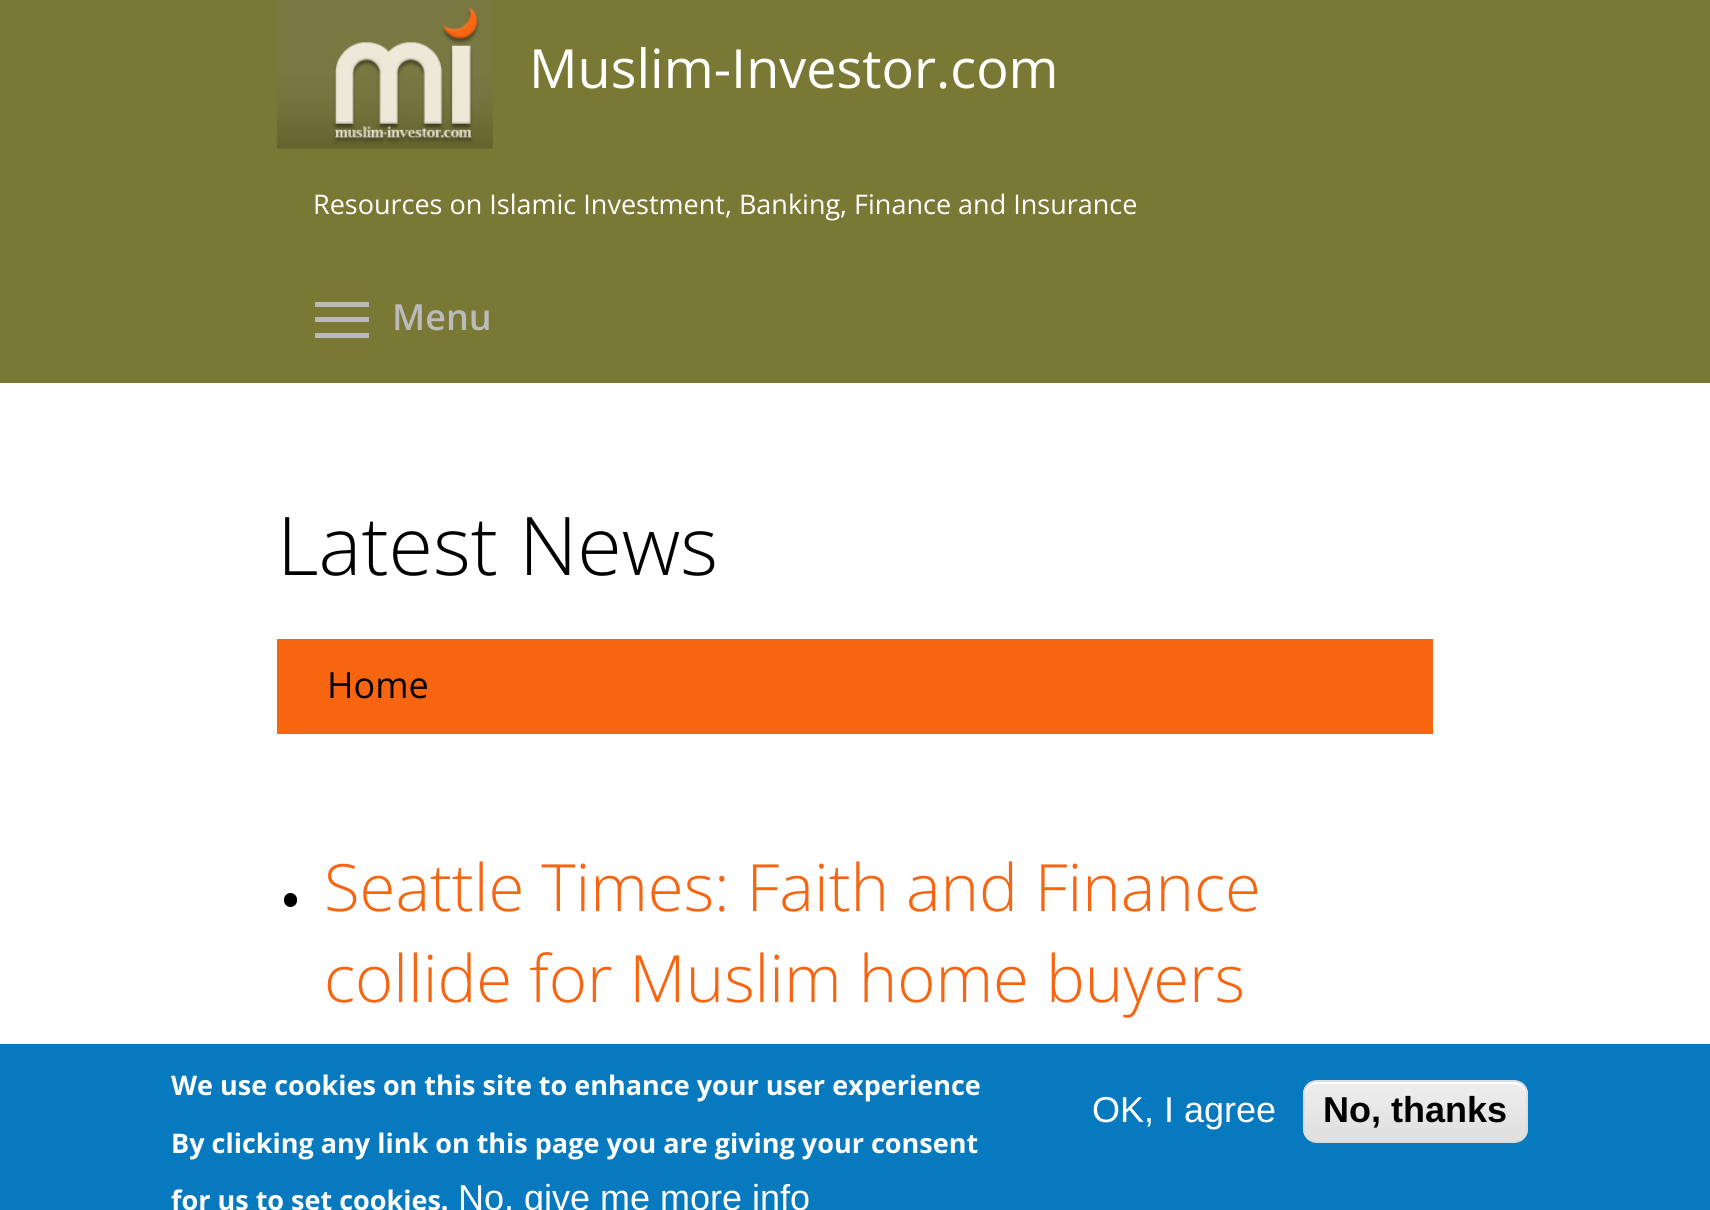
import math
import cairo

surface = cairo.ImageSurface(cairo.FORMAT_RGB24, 1710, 1210)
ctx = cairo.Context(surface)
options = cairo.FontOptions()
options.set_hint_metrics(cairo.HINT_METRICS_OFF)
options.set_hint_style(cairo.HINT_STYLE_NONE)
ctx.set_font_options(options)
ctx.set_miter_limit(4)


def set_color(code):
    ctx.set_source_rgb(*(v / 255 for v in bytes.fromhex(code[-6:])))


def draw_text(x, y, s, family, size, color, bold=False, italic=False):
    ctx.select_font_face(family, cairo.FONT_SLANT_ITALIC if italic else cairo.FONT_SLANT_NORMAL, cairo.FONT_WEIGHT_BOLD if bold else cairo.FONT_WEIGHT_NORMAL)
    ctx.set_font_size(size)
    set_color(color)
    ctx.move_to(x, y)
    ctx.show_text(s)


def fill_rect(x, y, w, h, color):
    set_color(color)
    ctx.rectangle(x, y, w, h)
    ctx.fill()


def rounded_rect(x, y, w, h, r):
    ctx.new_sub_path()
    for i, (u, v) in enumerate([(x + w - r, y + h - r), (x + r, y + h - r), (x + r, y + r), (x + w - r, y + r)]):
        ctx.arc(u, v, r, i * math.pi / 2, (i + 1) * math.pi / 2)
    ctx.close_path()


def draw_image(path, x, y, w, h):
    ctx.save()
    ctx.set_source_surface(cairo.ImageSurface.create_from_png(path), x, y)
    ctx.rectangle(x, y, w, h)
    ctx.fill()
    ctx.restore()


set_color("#ffffff")
ctx.paint()
fill_rect(0, 0, 1710, 383, "#797834")
draw_image("assets/img1.png", 276, 0, 217, 149)
draw_text(529, 88, "Muslim-Investor.com", "Open Sans", 54, "#fffffe")
draw_text(313, 214, "Resources on Islamic Investment, Banking, Finance and Insurance", "Open Sans", 27, "#fffffe")
fill_rect(315, 317, 54, 5, "#bcbbbb")
fill_rect(315, 302, 54, 5, "#bcbbbb")
fill_rect(315, 333, 54, 5, "#bcbbbb")
draw_text(392, 330, "Menu", "Open Sans SemiBold", 36, "#bcbbbb")
draw_text(277, 575, "Latest News", "Open Sans Light", 81, "#000001")
fill_rect(277, 639, 1156, 95, "#f76511")
draw_text(327, 698, "Home", "Open Sans", 36, "#000001")
rounded_rect(284, 893, 13, 14, 6.5)
ctx.fill()
draw_text(324, 911, "Seattle Times: Faith and Finance", "Open Sans Light", 65.25, "#f76511")
draw_text(324, 1002, "collide for Muslim home buyers", "Open Sans Light", 65.25, "#f76511")
fill_rect(0, 1044, 1710, 166, "#0779bf")
draw_text(171, 1095, "We use cookies on this site to enhance your user experience", "Open Sans", 27, "#fffffe", bold=True)
draw_text(171, 1153, "By clicking any link on this page you are giving your consent", "Open Sans", 27, "#fffffe", bold=True)
draw_text(171, 1210, "for us to set cookies.", "Open Sans", 27, "#fffffe", bold=True)
draw_text(458, 1210, "No, give me more info", "Liberation Sans", 36, "#fffffe")
draw_text(1092, 1122, "OK, I agree", "Liberation Sans", 36, "#fffffe")
ctx.save()
rounded_rect(1303, 1080, 225, 63, 14)
ctx.clip()
gradient = cairo.LinearGradient(1415, 1082, 1415, 1141)
gradient.add_color_stop_rgba(0.05, 0.929, 0.929, 0.929, 1)
gradient.add_color_stop_rgba(1, 0.875, 0.875, 0.875, 1)
ctx.set_source(gradient)
ctx.rectangle(1303, 1082, 225, 59)
ctx.fill()
ctx.restore()
set_color("#ffffff")
ctx.new_path()
ctx.move_to(1316, 1084)
ctx.line_to(1514, 1084)
ctx.curve_to(1520, 1084, 1526, 1090, 1526, 1096)
ctx.line_to(1526, 1093)
ctx.curve_to(1526, 1087, 1521, 1082, 1515, 1082)
ctx.line_to(1316, 1082)
ctx.curve_to(1310, 1082, 1305, 1087, 1305, 1093)
ctx.line_to(1305, 1096)
ctx.curve_to(1305, 1090, 1310, 1084, 1316, 1084)
ctx.close_path()
ctx.fill()
rounded_rect(1304, 1081, 223, 61, 13)
set_color("#dcdcdc")
ctx.stroke()
draw_text(1323, 1122, "No, thanks", "Liberation Sans", 36, "#000001", bold=True)
surface.write_to_png("output.png")
